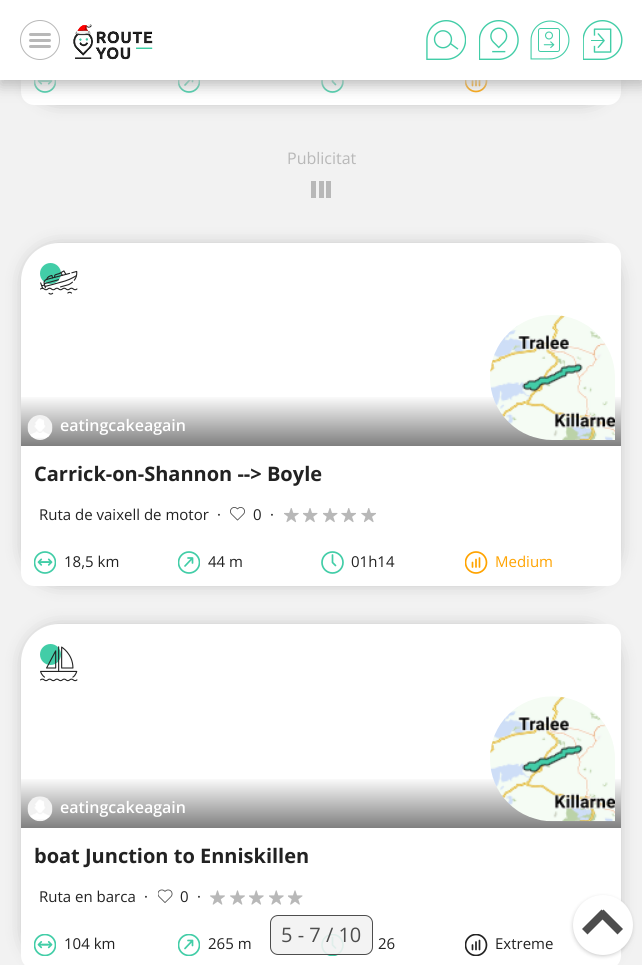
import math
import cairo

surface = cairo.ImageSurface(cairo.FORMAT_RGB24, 642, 965)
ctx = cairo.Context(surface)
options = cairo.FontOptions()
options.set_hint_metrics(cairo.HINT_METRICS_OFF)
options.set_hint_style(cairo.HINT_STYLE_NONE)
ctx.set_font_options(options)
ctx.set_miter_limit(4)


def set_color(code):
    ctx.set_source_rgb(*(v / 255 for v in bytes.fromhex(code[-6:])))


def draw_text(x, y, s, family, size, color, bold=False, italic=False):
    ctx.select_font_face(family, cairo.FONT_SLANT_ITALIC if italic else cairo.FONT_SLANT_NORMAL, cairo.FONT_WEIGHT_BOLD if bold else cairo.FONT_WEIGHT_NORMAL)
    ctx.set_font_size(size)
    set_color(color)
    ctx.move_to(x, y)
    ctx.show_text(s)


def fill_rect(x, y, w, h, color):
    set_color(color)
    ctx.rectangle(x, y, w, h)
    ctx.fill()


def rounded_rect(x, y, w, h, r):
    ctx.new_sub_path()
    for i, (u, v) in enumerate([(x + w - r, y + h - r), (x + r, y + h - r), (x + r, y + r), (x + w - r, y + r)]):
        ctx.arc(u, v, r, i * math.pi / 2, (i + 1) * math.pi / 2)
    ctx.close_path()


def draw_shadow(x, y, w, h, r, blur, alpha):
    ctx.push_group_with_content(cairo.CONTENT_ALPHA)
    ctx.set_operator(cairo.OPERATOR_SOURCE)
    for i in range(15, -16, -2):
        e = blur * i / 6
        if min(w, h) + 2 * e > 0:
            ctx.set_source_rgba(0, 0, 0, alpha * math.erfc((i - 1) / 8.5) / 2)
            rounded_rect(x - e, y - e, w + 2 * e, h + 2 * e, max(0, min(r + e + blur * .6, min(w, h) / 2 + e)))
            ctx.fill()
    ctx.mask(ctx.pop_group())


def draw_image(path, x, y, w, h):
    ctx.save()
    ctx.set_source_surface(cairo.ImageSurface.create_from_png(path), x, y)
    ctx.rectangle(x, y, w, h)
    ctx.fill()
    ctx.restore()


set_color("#f2f2f2")
ctx.paint()
set_color("#222222")
draw_shadow(21, -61, 600, 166, 38, 7.5, 0.2)
set_color("#ffffff")
ctx.new_path()
ctx.move_to(59, -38)
ctx.line_to(608, -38)
ctx.curve_to(615, -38, 621, -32, 621, -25)
ctx.line_to(621, 92)
ctx.curve_to(621, 99, 615, 105, 608, 105)
ctx.line_to(34, 105)
ctx.curve_to(27, 105, 21, 99, 21, 92)
ctx.line_to(21, 0)
ctx.curve_to(21, -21, 38, -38, 59, -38)
ctx.close_path()
ctx.fill()
draw_image("assets/img6.png", 34, 80, 22, 13)
ctx.save()
ctx.rectangle(178, 70, 22, 23)
ctx.clip()
ctx.arc(189, 81.5, 10.5, 0, 2 * math.pi)
set_color("#42cda7")
ctx.set_line_width(1.7)
ctx.stroke()
ctx.restore()
ctx.new_path()
ctx.move_to(185, 85)
ctx.line_to(192.5, 77)
ctx.line_to(188, 77)
ctx.move_to(185, 85)
ctx.line_to(192.5, 77)
ctx.line_to(192.5, 81.5)
set_color("#42cda7")
ctx.set_line_width(1.7)
ctx.set_line_cap(cairo.LINE_CAP_ROUND)
ctx.set_line_join(cairo.LINE_JOIN_ROUND)
ctx.stroke()
ctx.arc(332.5, 81.5, 10.5, 0, 2 * math.pi)
ctx.set_line_cap(cairo.LINE_CAP_BUTT)
ctx.set_line_join(cairo.LINE_JOIN_MITER)
ctx.stroke()
ctx.new_path()
ctx.move_to(332.5, 81.5)
ctx.line_to(332.5, 73.5)
ctx.move_to(335.5, 84.5)
ctx.line_to(332.5, 81.5)
ctx.set_line_cap(cairo.LINE_CAP_ROUND)
ctx.stroke()
ctx.save()
ctx.rectangle(465, 70, 23, 23)
ctx.clip()
ctx.arc(476, 81, 10.5, 0, 2 * math.pi)
set_color("#ffa300")
ctx.set_line_cap(cairo.LINE_CAP_BUTT)
ctx.stroke()
ctx.restore()
ctx.new_path()
ctx.move_to(479.5, 76.5)
ctx.line_to(479.5, 85.5)
ctx.move_to(472.5, 81)
ctx.line_to(472.5, 85.5)
ctx.move_to(476, 78.5)
ctx.line_to(476, 85.5)
set_color("#ffa300")
ctx.set_line_join(cairo.LINE_JOIN_ROUND)
ctx.stroke()
set_color("#b8b8b8")
draw_shadow(0, 5, 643, 80, 0, 7.5, 1)
fill_rect(0, 0, 642, 80, "#ffffff")
ctx.arc(40, 40, 19.5, 0, 2 * math.pi)
set_color("#b8b8b8")
ctx.set_line_width(1)
ctx.set_line_cap(cairo.LINE_CAP_BUTT)
ctx.set_line_join(cairo.LINE_JOIN_MITER)
ctx.stroke()
rounded_rect(29, 33, 22, 3, 1.5)
ctx.fill()
rounded_rect(29, 39, 22, 3, 1.5)
ctx.fill()
rounded_rect(29, 45, 22, 3, 1.5)
ctx.fill()
draw_image("assets/img1.png", 73, 24, 80, 36)
draw_image("assets/img2.png", 426, 20, 40, 40)
draw_image("assets/img3.png", 479, 20, 40, 40)
draw_image("assets/img4.png", 530, 20, 40, 40)
draw_image("assets/img5.png", 583, 20, 40, 40)
draw_text(287, 164, "Publicitat", "Open Sans", 16, "#b8b8b8")
fill_rect(319, 181, 5, 17, "#b8b8b8")
fill_rect(311, 181, 5, 17, "#b8b8b8")
fill_rect(326, 181, 5, 17, "#b8b8b8")
set_color("#222222")
draw_shadow(21, 243, 600, 343, 38, 7.5, 0.2)
set_color("#ffffff")
ctx.new_path()
ctx.move_to(59, 243)
ctx.line_to(608, 243)
ctx.curve_to(615, 243, 621, 249, 621, 256)
ctx.line_to(621, 573)
ctx.curve_to(621, 580, 615, 586, 608, 586)
ctx.line_to(34, 586)
ctx.curve_to(27, 586, 21, 580, 21, 573)
ctx.line_to(21, 281)
ctx.curve_to(21, 260, 38, 243, 59, 243)
ctx.close_path()
ctx.fill()
set_color("#42cda7")
ctx.arc(50.5, 273.5, 10.5, 0, 2 * math.pi)
ctx.fill()
draw_image("assets/img7.png", 40, 270, 38, 25)
gradient = cairo.LinearGradient(321, 446, 321, 243)
gradient.add_color_stop_rgba(0, 0, 0, 0, 0.5)
gradient.add_color_stop_rgba(0.25, 0, 0, 0, 0)
ctx.set_source(gradient)
ctx.rectangle(21, 397, 600, 49)
ctx.fill()
draw_image("assets/img8.png", 490, 315, 125, 125)
draw_image("assets/img9.png", 27, 415, 26, 25)
draw_text(60, 431, "eatingcakeagain", "Open Sans SemiBold", 16, "#ffffff")
draw_text(34, 481, "Carrick-on-Shannon --> Boyle", "Open Sans", 20, "#222222", bold=True)
draw_text(39, 520, "Ruta de vaixell de motor", "Open Sans", 15, "#222222")
draw_text(217, 520, "·", "Open Sans", 15, "#222222")
draw_image("assets/img10.png", 230, 507, 15, 14)
draw_text(253, 520, "0", "Open Sans", 15, "#222222")
draw_text(270, 520, "·", "Open Sans", 15, "#222222")
draw_image("assets/img11.png", 284, 508, 15, 15)
draw_image("assets/img12.png", 303, 508, 15, 15)
draw_image("assets/img12.png", 323, 508, 15, 15)
draw_image("assets/img13.png", 341, 508, 15, 15)
draw_image("assets/img13.png", 361, 508, 15, 15)
draw_image("assets/img14.png", 34, 551, 22, 23)
draw_text(64, 567, "18,5 km", "Open Sans", 15, "#222222")
ctx.save()
ctx.rectangle(178, 551, 22, 23)
ctx.clip()
ctx.arc(189, 562.5, 10.5, 0, 2 * math.pi)
set_color("#42cda7")
ctx.set_line_width(1.7)
ctx.stroke()
ctx.restore()
ctx.new_path()
ctx.move_to(185, 566)
ctx.line_to(192.5, 558)
ctx.line_to(188, 558)
ctx.move_to(185, 566)
ctx.line_to(192.5, 558)
ctx.line_to(192.5, 563)
set_color("#42cda7")
ctx.set_line_width(1.7)
ctx.set_line_cap(cairo.LINE_CAP_ROUND)
ctx.set_line_join(cairo.LINE_JOIN_ROUND)
ctx.stroke()
draw_text(208, 567, "44 m", "Open Sans", 15, "#222222")
ctx.new_path()
ctx.arc(332.5, 562.5, 10.5, 0, 2 * math.pi)
set_color("#42cda7")
ctx.set_line_cap(cairo.LINE_CAP_BUTT)
ctx.set_line_join(cairo.LINE_JOIN_MITER)
ctx.stroke()
ctx.new_path()
ctx.move_to(332.5, 562.5)
ctx.line_to(332.5, 555)
ctx.move_to(335.5, 565.5)
ctx.line_to(332.5, 562.5)
ctx.set_line_cap(cairo.LINE_CAP_ROUND)
ctx.stroke()
draw_text(351, 567, "01h14", "Open Sans", 15, "#222222")
ctx.save()
ctx.rectangle(465, 551, 23, 23)
ctx.clip()
ctx.arc(476, 562.5, 10.5, 0, 2 * math.pi)
set_color("#ffa300")
ctx.set_line_cap(cairo.LINE_CAP_BUTT)
ctx.stroke()
ctx.restore()
ctx.new_path()
ctx.move_to(479.5, 558)
ctx.line_to(479.5, 567)
ctx.move_to(472.5, 562.5)
ctx.line_to(472.5, 567)
ctx.move_to(476, 559.5)
ctx.line_to(476, 567)
set_color("#ffa300")
ctx.set_line_join(cairo.LINE_JOIN_ROUND)
ctx.stroke()
draw_text(495, 567, "Medium", "Open Sans", 15, "#ffa300")
set_color("#222222")
draw_shadow(21, 624, 600, 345, 38, 7.5, 0.2)
set_color("#ffffff")
ctx.new_path()
ctx.move_to(59, 624)
ctx.line_to(608, 624)
ctx.curve_to(615, 624, 621, 630, 621, 637)
ctx.line_to(621, 956)
ctx.curve_to(621, 963, 615, 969, 608, 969)
ctx.line_to(34, 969)
ctx.curve_to(27, 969, 21, 963, 21, 956)
ctx.line_to(21, 662)
ctx.curve_to(21, 641, 38, 624, 59, 624)
ctx.close_path()
ctx.fill()
set_color("#42cda7")
ctx.arc(50.5, 654.5, 10.5, 0, 2 * math.pi)
ctx.fill()
draw_image("assets/img15.png", 40, 646, 38, 36)
gradient = cairo.LinearGradient(321, 828, 321, 624)
gradient.add_color_stop_rgba(0, 0, 0, 0, 0.5)
gradient.add_color_stop_rgba(0.25, 0, 0, 0, 0)
ctx.set_source(gradient)
ctx.rectangle(21, 779, 600, 49)
ctx.fill()
draw_image("assets/img16.png", 490, 696, 125, 126)
draw_image("assets/img17.png", 27, 796, 26, 26)
draw_text(60, 813, "eatingcakeagain", "Open Sans SemiBold", 16, "#ffffff")
draw_text(34, 863, "boat Junction to Enniskillen", "Open Sans", 20, "#222222", bold=True)
draw_text(39, 902, "Ruta en barca", "Open Sans", 15, "#222222")
draw_text(144, 902, "·", "Open Sans", 15, "#222222")
draw_image("assets/img18.png", 158, 889, 15, 14)
draw_text(180, 902, "0", "Open Sans", 15, "#222222")
draw_text(197, 902, "·", "Open Sans", 15, "#222222")
draw_image("assets/img19.png", 210, 890, 15, 15)
draw_image("assets/img19.png", 230, 890, 15, 15)
draw_image("assets/img20.png", 249, 890, 15, 15)
draw_image("assets/img20.png", 269, 890, 15, 15)
draw_image("assets/img21.png", 288, 890, 15, 15)
draw_image("assets/img22.png", 34, 934, 22, 22)
draw_text(64, 949, "104 km", "Open Sans", 15, "#222222")
ctx.save()
ctx.rectangle(178, 934, 22, 22)
ctx.clip()
ctx.arc(189, 945, 10.5, 0, 2 * math.pi)
set_color("#42cda7")
ctx.set_line_cap(cairo.LINE_CAP_BUTT)
ctx.set_line_join(cairo.LINE_JOIN_MITER)
ctx.stroke()
ctx.restore()
ctx.new_path()
ctx.move_to(185, 948.5)
ctx.line_to(192.5, 940.5)
ctx.line_to(188, 940.5)
ctx.move_to(185, 948.5)
ctx.line_to(192.5, 940.5)
ctx.line_to(192.5, 945.5)
set_color("#42cda7")
ctx.stroke()
draw_text(208, 949, "265 m", "Open Sans", 15, "#222222")
ctx.save()
ctx.rectangle(321, 934, 23, 22)
ctx.clip()
ctx.arc(332.5, 945, 10.5, 0, 2 * math.pi)
set_color("#42cda7")
ctx.set_line_cap(cairo.LINE_CAP_BUTT)
ctx.set_line_join(cairo.LINE_JOIN_MITER)
ctx.stroke()
ctx.restore()
ctx.new_path()
ctx.move_to(332.5, 945)
ctx.line_to(332.5, 937.5)
ctx.move_to(335.5, 948)
ctx.line_to(332.5, 945)
set_color("#42cda7")
ctx.set_line_join(cairo.LINE_JOIN_MITER)
ctx.stroke()
draw_text(378, 949, "26", "Open Sans", 15, "#222222")
ctx.save()
ctx.rectangle(465, 934, 23, 22)
ctx.clip()
ctx.arc(476, 945, 10.5, 0, 2 * math.pi)
ctx.set_line_cap(cairo.LINE_CAP_BUTT)
ctx.stroke()
ctx.restore()
ctx.new_path()
ctx.move_to(479.5, 940.5)
ctx.line_to(479.5, 949.5)
ctx.move_to(472.5, 945)
ctx.line_to(472.5, 949.5)
ctx.move_to(476, 942)
ctx.line_to(476, 949.5)
ctx.set_line_join(cairo.LINE_JOIN_ROUND)
ctx.stroke()
draw_text(495, 949, "Extreme", "Open Sans", 15, "#222222")
ctx.set_source_rgba(0.949, 0.949, 0.949, 0.9)
rounded_rect(270.5, 915.5, 102, 39, 7.5)
ctx.fill_preserve()
set_color("#4d4d4d")
ctx.set_line_width(1)
ctx.set_line_cap(cairo.LINE_CAP_BUTT)
ctx.set_line_join(cairo.LINE_JOIN_MITER)
ctx.stroke()
draw_text(281, 942, "5 - 7 / 10", "Open Sans", 20, "#4d4d4d")
set_color("#000000")
draw_shadow(574, 898, 57, 57, 28.5, 2.5, 0.3)
set_color("#ffffff")
ctx.arc(603, 925, 30, 0, 2 * math.pi)
ctx.fill()
set_color("#4d4d4d")
ctx.new_path()
ctx.move_to(603.5, 909.5)
ctx.line_to(623, 929)
ctx.line_to(617.5, 934.5)
ctx.line_to(598, 915)
ctx.close_path()
ctx.fill()
ctx.new_path()
ctx.move_to(601.5, 909.5)
ctx.line_to(607, 915)
ctx.line_to(587.5, 934.5)
ctx.line_to(582, 929)
ctx.close_path()
ctx.fill()
surface.write_to_png("output.png")
